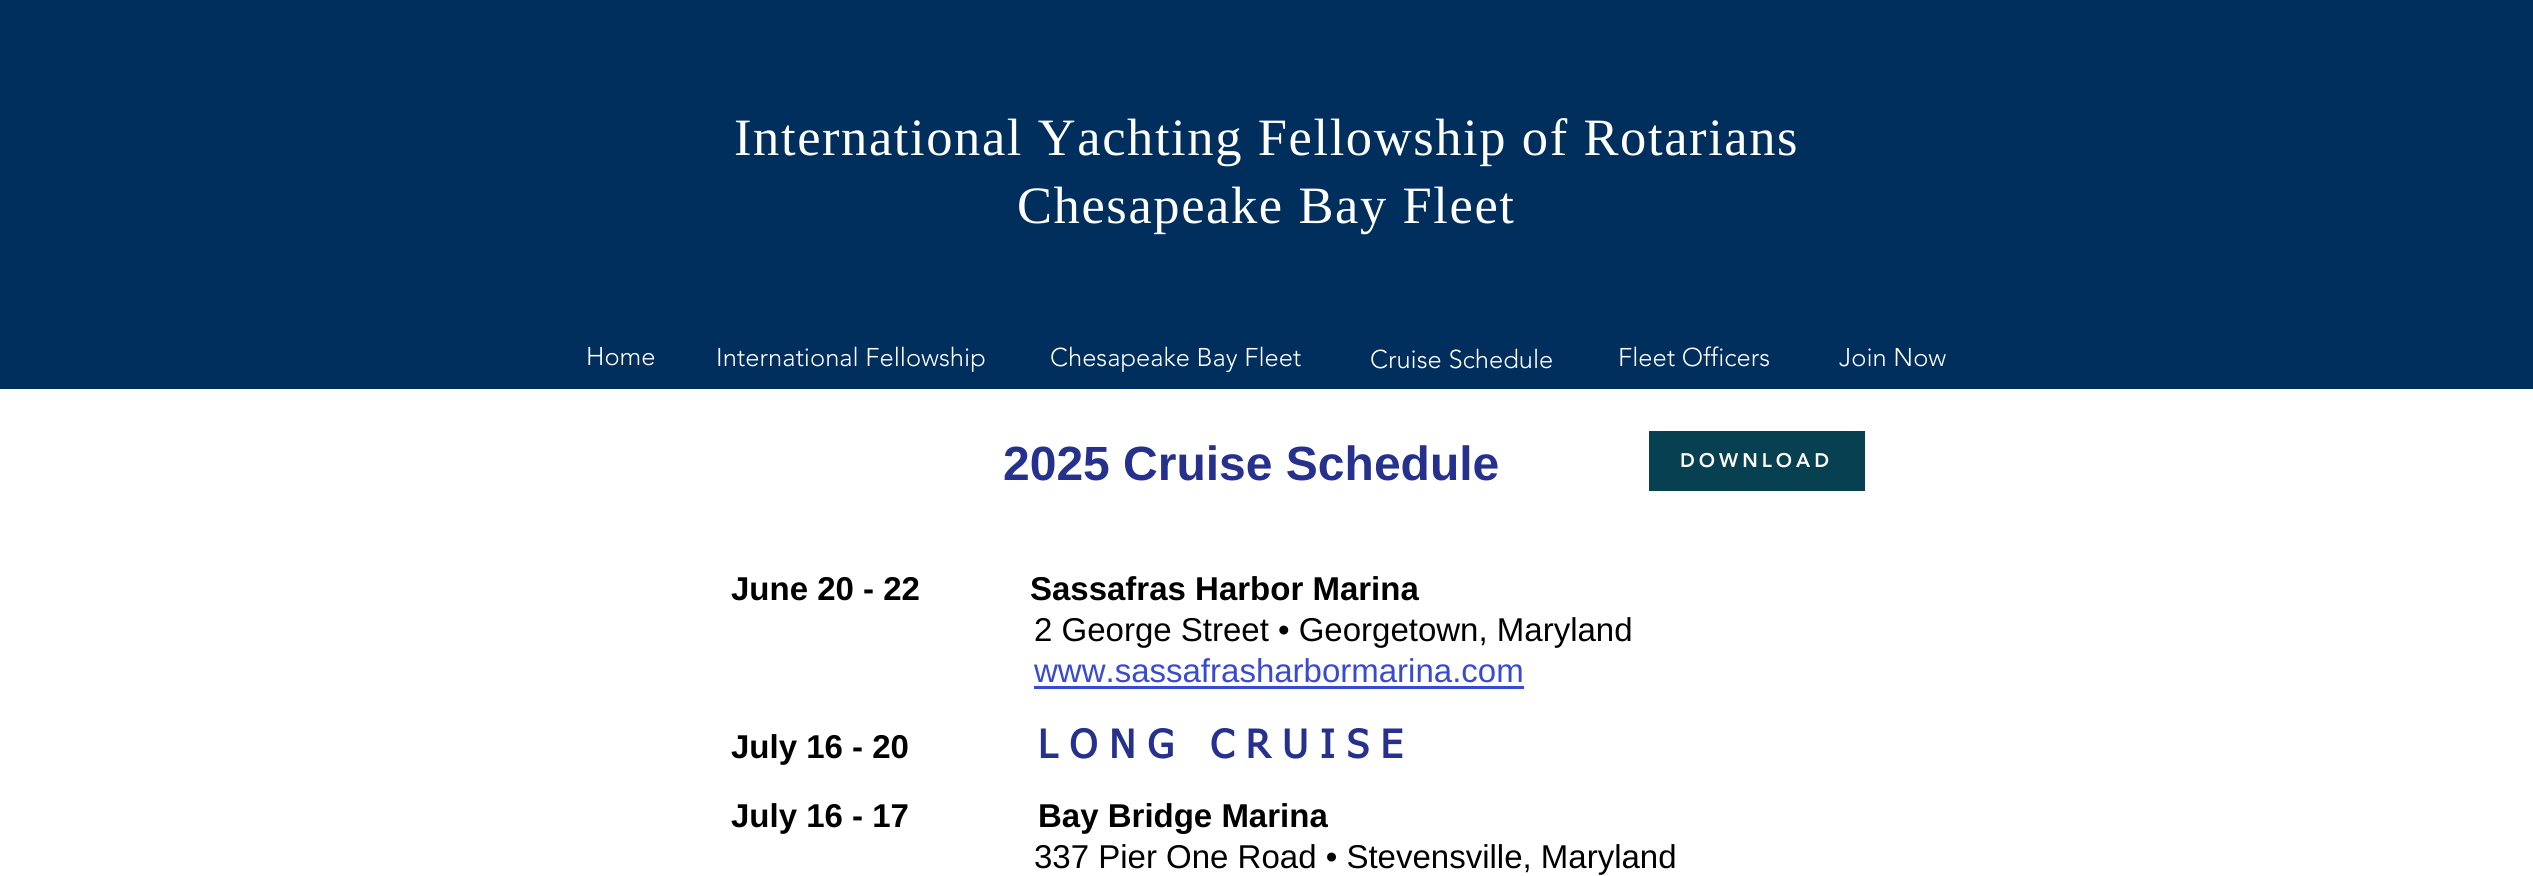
import math
import cairo

surface = cairo.ImageSurface(cairo.FORMAT_RGB24, 2533, 876)
ctx = cairo.Context(surface)
options = cairo.FontOptions()
options.set_hint_metrics(cairo.HINT_METRICS_OFF)
options.set_hint_style(cairo.HINT_STYLE_NONE)
ctx.set_font_options(options)
ctx.set_miter_limit(4)


def set_color(code):
    ctx.set_source_rgb(*(v / 255 for v in bytes.fromhex(code[-6:])))


def draw_text(x, y, s, family, size, color, bold=False, italic=False):
    ctx.select_font_face(family, cairo.FONT_SLANT_ITALIC if italic else cairo.FONT_SLANT_NORMAL, cairo.FONT_WEIGHT_BOLD if bold else cairo.FONT_WEIGHT_NORMAL)
    ctx.set_font_size(size)
    set_color(color)
    ctx.move_to(x, y)
    ctx.show_text(s)


def draw_spaced(x, y, s, letter, word):
    ctx.move_to(x, y)
    for ch in s:
        ctx.show_text(ch)
        ctx.rel_move_to(letter + word * (ch == ' '), 0)


def fill_rect(x, y, w, h, color):
    set_color(color)
    ctx.rectangle(x, y, w, h)
    ctx.fill()


set_color("#ffffff")
ctx.paint()
fill_rect(0, 0, 2533, 389, "#002e5d")
ctx.select_font_face("Liberation Serif")
ctx.set_font_size(52.5)
set_color("#ffffff")
draw_spaced(734, 155, "International Yachting Fellowship of Rotarians", 1.6, 0)
draw_spaced(1017, 223, "Chesapeake Bay Fleet", 1.6, 0)
draw_text(586, 365, "Home", "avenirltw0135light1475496 Light", 25.5, "#ffffff")
draw_text(716, 366, "International Fellowship", "avenirltw0135light1475496 Light", 25.5, "#ffffff")
draw_text(1050, 366, "Chesapeake Bay Fleet", "avenirltw0135light1475496 Light", 25.5, "#ffffff")
draw_text(1618, 366, "Fleet Officers", "avenirltw0135light1475496 Light", 25.5, "#ffffff")
draw_text(1839, 366, "Join Now", "avenirltw0135light1475496 Light", 25.5, "#ffffff")
draw_text(1370, 368, "Cruise Schedule", "avenirltw0135light1475496 Light", 25.5, "#ffffff")
draw_text(1003, 480, "2025 Cruise Schedule", "Liberation Sans", 48, "#25318d", bold=True)
fill_rect(1649, 431, 216, 60, "#074151")
ctx.select_font_face("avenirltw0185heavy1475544 Black")
ctx.set_font_size(19.5)
set_color("#ffffff")
draw_spaced(1680, 467, "DOWNLOAD", 4, 0)
draw_text(731, 600, "June 20 - 22            Sassafras Harbor Marina", "Liberation Sans", 33, "#000000", bold=True)
draw_text(1034, 641, "2 George Street • Georgetown, Maryland", "Liberation Sans", 33, "#000000")
draw_text(1034, 682, "www.sassafrasharbormarina.com", "Liberation Sans", 33, "#384ad3")
fill_rect(1034, 686, 490, 3, "#384ad3")
draw_text(731, 758, "July 16 - 20", "Liberation Sans", 33, "#000000", bold=True)
draw_text(1038, 758, "L O N G   C R U I S E", "tahoma", 39, "#25318d", bold=True)
draw_text(731, 827, "July 16 - 17", "Liberation Sans", 33, "#000000", bold=True)
draw_text(1038, 827, "Bay Bridge Marina", "Liberation Sans", 33, "#000000", bold=True)
draw_text(1034, 868, "337 Pier One Road • Stevensville, Maryland", "Liberation Sans", 33, "#000000")
surface.write_to_png("output.png")
